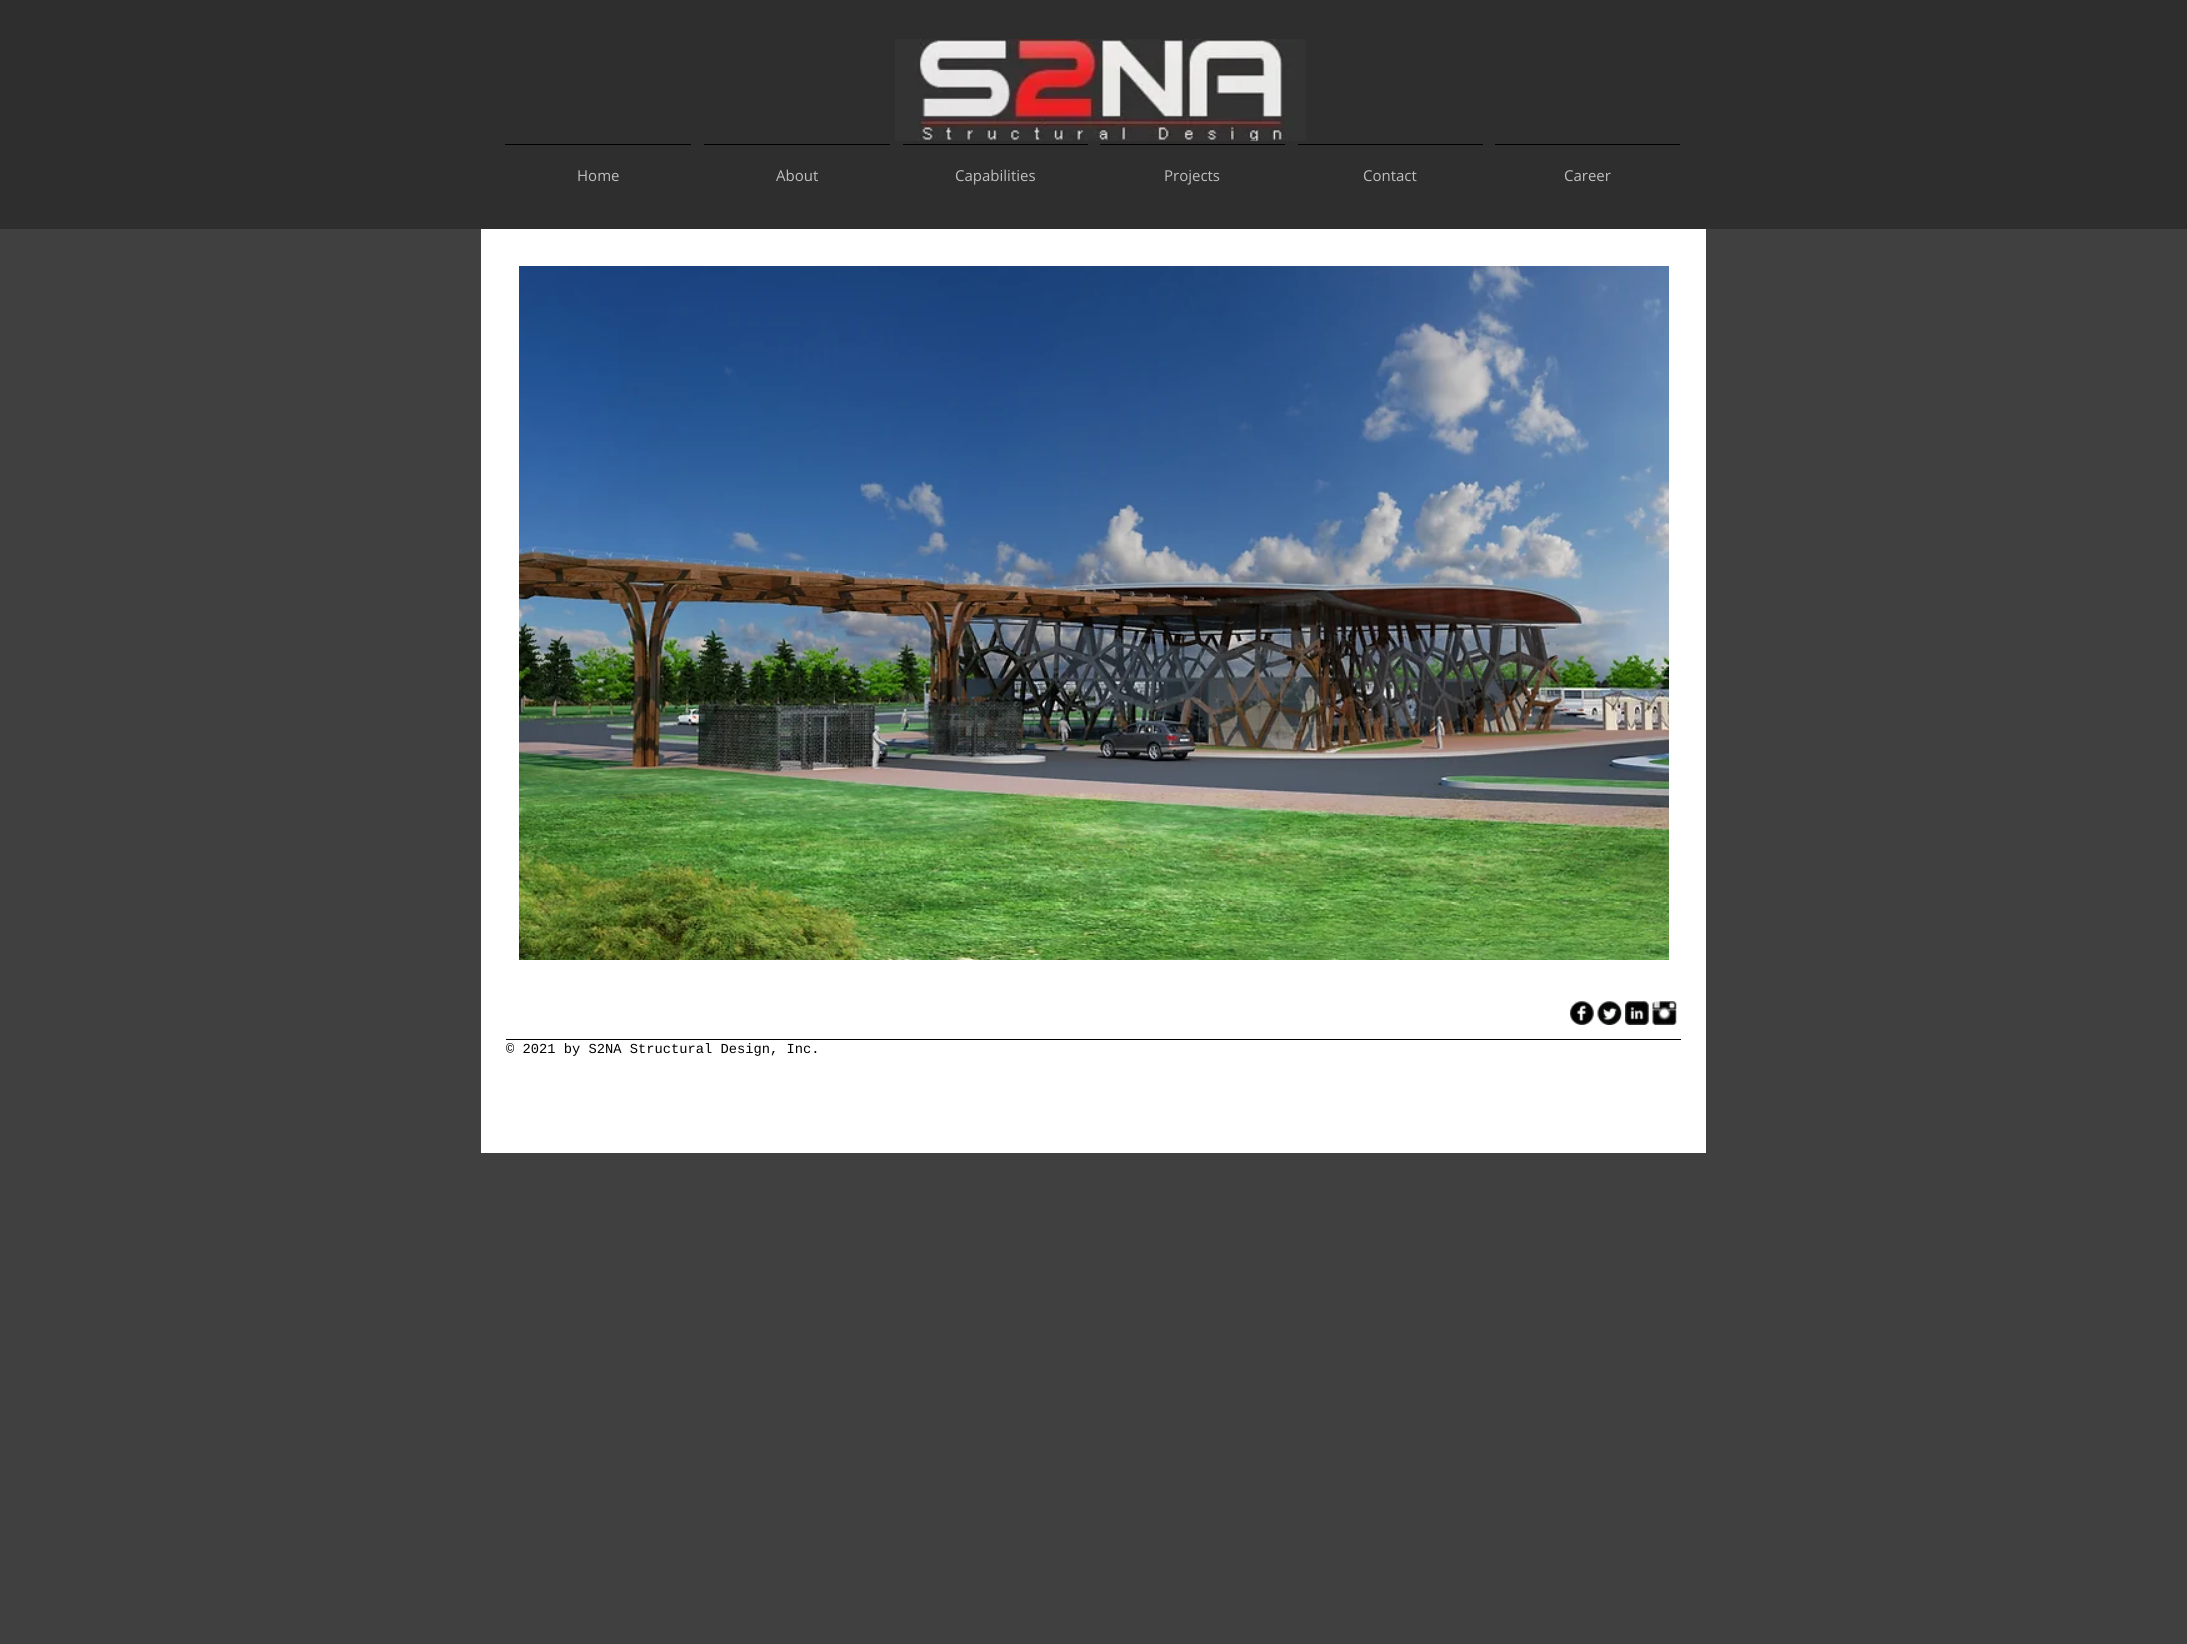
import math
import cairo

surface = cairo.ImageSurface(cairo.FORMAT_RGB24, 2187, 1644)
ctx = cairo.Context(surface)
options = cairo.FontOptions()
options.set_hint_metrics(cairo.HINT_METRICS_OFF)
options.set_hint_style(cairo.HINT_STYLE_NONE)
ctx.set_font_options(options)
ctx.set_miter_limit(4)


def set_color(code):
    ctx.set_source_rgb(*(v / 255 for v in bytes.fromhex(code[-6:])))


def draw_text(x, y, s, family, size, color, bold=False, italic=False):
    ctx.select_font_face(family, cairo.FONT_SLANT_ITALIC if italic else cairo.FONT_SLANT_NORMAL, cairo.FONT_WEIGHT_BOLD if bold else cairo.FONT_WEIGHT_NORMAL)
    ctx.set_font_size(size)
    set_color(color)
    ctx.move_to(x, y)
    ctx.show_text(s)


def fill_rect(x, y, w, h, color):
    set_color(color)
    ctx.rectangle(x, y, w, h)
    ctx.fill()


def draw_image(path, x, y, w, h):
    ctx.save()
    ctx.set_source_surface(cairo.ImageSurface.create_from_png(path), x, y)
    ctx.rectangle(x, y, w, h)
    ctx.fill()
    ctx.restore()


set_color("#404040")
ctx.paint()
fill_rect(0, 0, 2187, 229, "#2f2e2e")
draw_image("assets/img1.png", 895, 39, 411, 103)
fill_rect(505, 144, 186, 1, "#000000")
draw_text(577, 181, "Home", "Open Sans", 15, "#bfbfbf")
fill_rect(704, 144, 186, 1, "#000000")
draw_text(776, 181, "About", "Open Sans", 15, "#bfbfbf")
fill_rect(903, 144, 185, 1, "#000000")
draw_text(955, 181, "Capabilities", "Open Sans", 15, "#bfbfbf")
fill_rect(1100, 144, 185, 1, "#000000")
draw_text(1164, 181, "Projects", "Open Sans", 15, "#bfbfbf")
fill_rect(1298, 144, 185, 1, "#000000")
draw_text(1363, 181, "Contact", "Open Sans", 15, "#bfbfbf")
fill_rect(1495, 144, 185, 1, "#000000")
draw_text(1564, 181, "Career", "Open Sans", 15, "#bfbfbf")
fill_rect(481, 229, 1225, 924, "#ffffff")
draw_image("assets/img2.png", 519, 266, 1150, 694)
draw_image("assets/img3.png", 1570, 1001, 24, 24)
draw_image("assets/img4.png", 1597, 1001, 25, 24)
draw_image("assets/img5.png", 1625, 1001, 24, 24)
draw_image("assets/img6.png", 1652, 1001, 25, 24)
fill_rect(506, 1039, 1175, 1, "#000000")
draw_text(506, 1053, "© 2021 by S2NA Structural Design, Inc.", "Liberation Mono", 13.75, "#000000")
surface.write_to_png("output.png")
